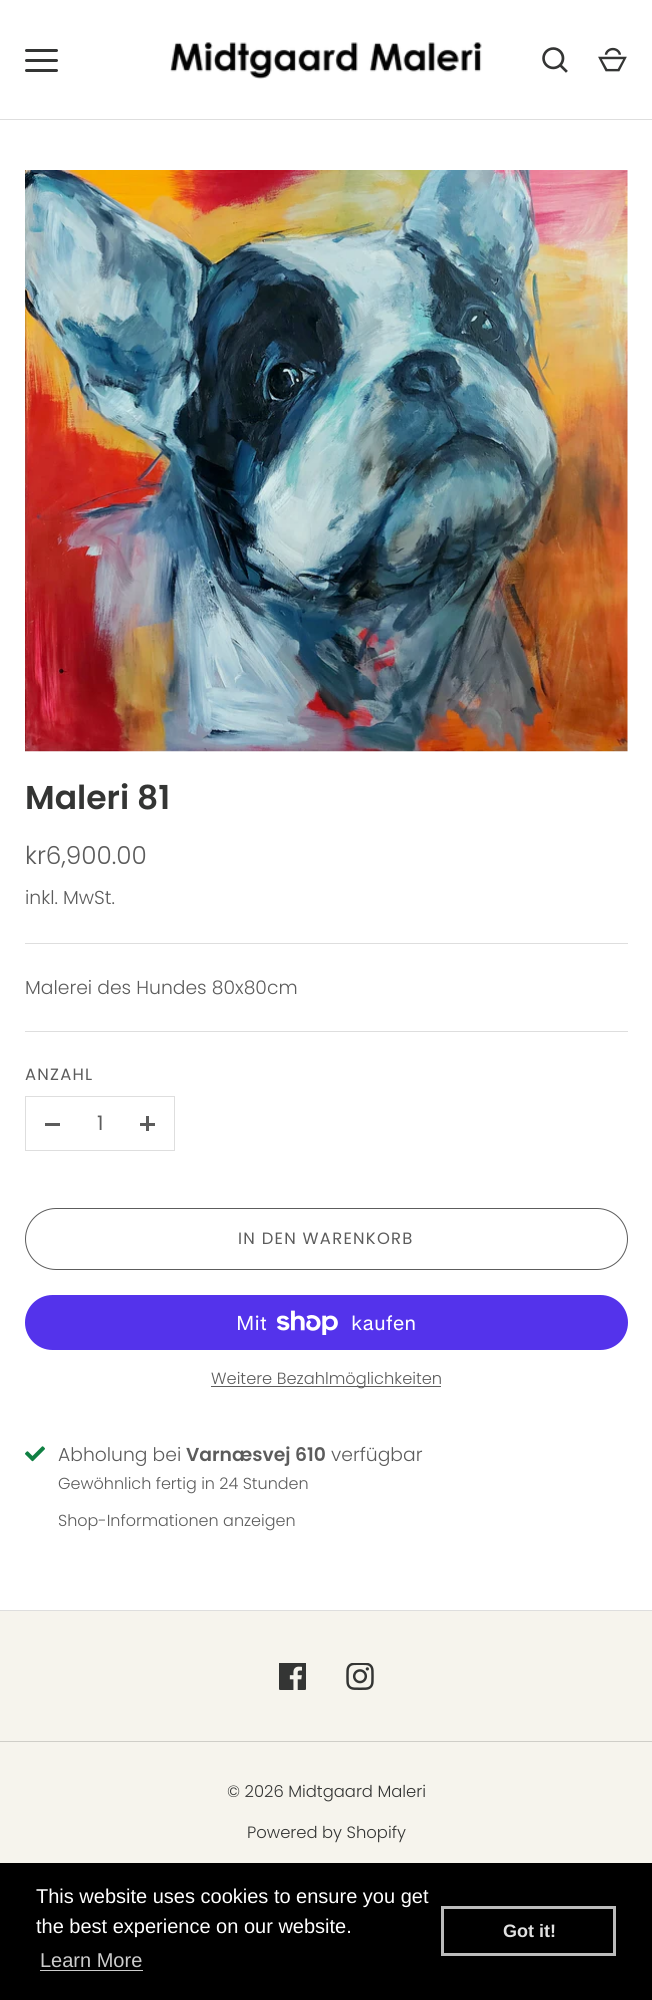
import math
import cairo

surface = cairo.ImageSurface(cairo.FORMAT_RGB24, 652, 2000)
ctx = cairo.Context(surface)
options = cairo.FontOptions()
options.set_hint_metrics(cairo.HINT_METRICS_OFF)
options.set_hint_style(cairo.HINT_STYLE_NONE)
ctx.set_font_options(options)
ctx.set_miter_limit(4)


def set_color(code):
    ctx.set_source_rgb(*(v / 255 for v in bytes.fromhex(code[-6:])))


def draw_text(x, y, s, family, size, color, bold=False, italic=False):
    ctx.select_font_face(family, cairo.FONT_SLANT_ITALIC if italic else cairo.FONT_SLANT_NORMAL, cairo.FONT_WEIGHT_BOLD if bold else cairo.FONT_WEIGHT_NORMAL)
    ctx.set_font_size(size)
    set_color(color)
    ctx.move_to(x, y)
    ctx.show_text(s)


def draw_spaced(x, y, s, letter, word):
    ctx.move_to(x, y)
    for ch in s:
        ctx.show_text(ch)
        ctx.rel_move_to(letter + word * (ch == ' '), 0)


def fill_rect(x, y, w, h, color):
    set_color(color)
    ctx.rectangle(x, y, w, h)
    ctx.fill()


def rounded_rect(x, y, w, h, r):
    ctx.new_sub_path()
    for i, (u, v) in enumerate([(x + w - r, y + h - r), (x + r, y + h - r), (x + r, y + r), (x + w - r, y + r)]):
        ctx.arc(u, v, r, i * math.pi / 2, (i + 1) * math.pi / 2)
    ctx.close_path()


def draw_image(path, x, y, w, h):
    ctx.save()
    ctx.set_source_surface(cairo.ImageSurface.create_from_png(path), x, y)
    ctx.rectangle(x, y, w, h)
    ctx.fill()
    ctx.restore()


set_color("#ffffff")
ctx.paint()
set_color("#343534")
rounded_rect(25, 49, 33, 3, 1.5)
ctx.fill()
rounded_rect(25, 59, 33, 3, 1.5)
ctx.fill()
rounded_rect(25, 69, 33, 3, 1.5)
ctx.fill()
draw_image("assets/img1.png", 170, 42, 312, 37)
draw_image("assets/img2.png", 542, 47, 26, 26)
draw_image("assets/img3.png", 598, 47, 29, 25)
fill_rect(0, 119, 652, 1, "#dedede")
draw_image("assets/img4.png", 25, 170, 603, 582)
draw_text(25, 809, "Maleri 81", "Poppins SemiBold", 33, "#343534")
draw_text(25, 864, "kr6,900.00", "Poppins Light", 24.75, "#5c5c5c")
draw_text(25, 904, "inkl. MwSt.", "Poppins Light", 18.75, "#5c5c5c")
fill_rect(25, 943, 603, 1, "#dedede")
draw_text(25, 994, "Malerei des Hundes 80x80cm", "Poppins Light", 18.75, "#5c5c5c")
fill_rect(25, 1031, 603, 1, "#dedede")
ctx.select_font_face("Poppins")
ctx.set_font_size(16.4)
set_color("#5c5c5c")
draw_spaced(25, 1080, "ANZAHL", 1.25, 0)
ctx.rectangle(25.5, 1096.5, 149, 54)
set_color("#dedede")
ctx.set_line_width(1)
ctx.stroke()
fill_rect(45, 1123, 15, 3, "#5c5c5c")
draw_text(97, 1130, "1", "Poppins", 20, "#5c5c5c")
fill_rect(140, 1123, 15, 3, "#5c5c5c")
fill_rect(146, 1116, 3, 15, "#5c5c5c")
rounded_rect(25.5, 1208.5, 602, 61, 30.5)
ctx.stroke()
ctx.set_font_size(16.4)
draw_spaced(238, 1244, "IN DEN WARENKORB", 1.25, 0)
set_color("#5433eb")
rounded_rect(25, 1295, 603, 55, 27.5)
ctx.fill()
draw_text(236, 1330, "Mit", "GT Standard", 20, "#ffffff")
draw_image("assets/img5.png", 276, 1310, 62, 25)
draw_text(351, 1330, "kaufen", "GT Standard", 20, "#ffffff")
fill_rect(211, 1386, 230, 1, "#5c5c5c")
draw_text(211, 1384, "Weitere Bezahlmöglichkeiten", "Poppins Light", 16.25, "#5c5c5c")
draw_image("assets/img6.png", 25, 1446, 20, 16)
draw_text(58, 1461, "Abholung bei", "Poppins Light", 18.75, "#5c5c5c")
draw_text(186, 1461, "Varnæsvej 610", "Poppins SemiBold", 18.75, "#5c5c5c")
draw_text(331, 1461, "verfügbar", "Poppins Light", 18.75, "#5c5c5c")
draw_text(58, 1489, "Gewöhnlich fertig in 24 Stunden", "Poppins Light", 16, "#5c5c5c")
draw_text(58, 1526, "Shop-Informationen anzeigen", "Poppins Light", 16, "#5c5c5c")
fill_rect(0, 1611, 652, 252, "#f6f4ed")
fill_rect(0, 1610, 652, 1, "#dedede")
draw_image("assets/img7.png", 279, 1663, 27, 27)
draw_image("assets/img8.png", 346, 1663, 28, 27)
fill_rect(0, 1741, 652, 1, "#cfcec8")
draw_text(227, 1797, "© 2026 Midtgaard Maleri", "Poppins Light", 16.4, "#343534")
draw_text(247, 1838, "Powered by Shopify", "Poppins Light", 16.4, "#343534")
fill_rect(0, 1863, 652, 137, "#000000")
draw_text(36, 1903, "This website uses cookies to ensure you get", "Liberation Sans", 20, "#ffffff")
draw_text(36, 1933, "the best experience on our website.", "Liberation Sans", 20, "#ffffff")
draw_text(40, 1967, "Learn More", "Liberation Sans", 20, "#cccccc")
fill_rect(40, 1970, 103, 1, "#cccccc")
ctx.rectangle(442.5, 1907.5, 172, 47)
set_color("#bbbbbb")
ctx.set_line_width(3)
ctx.stroke()
draw_text(503, 1937, "Got it!", "Liberation Sans", 18, "#e0e0e0", bold=True)
surface.write_to_png("output.png")
